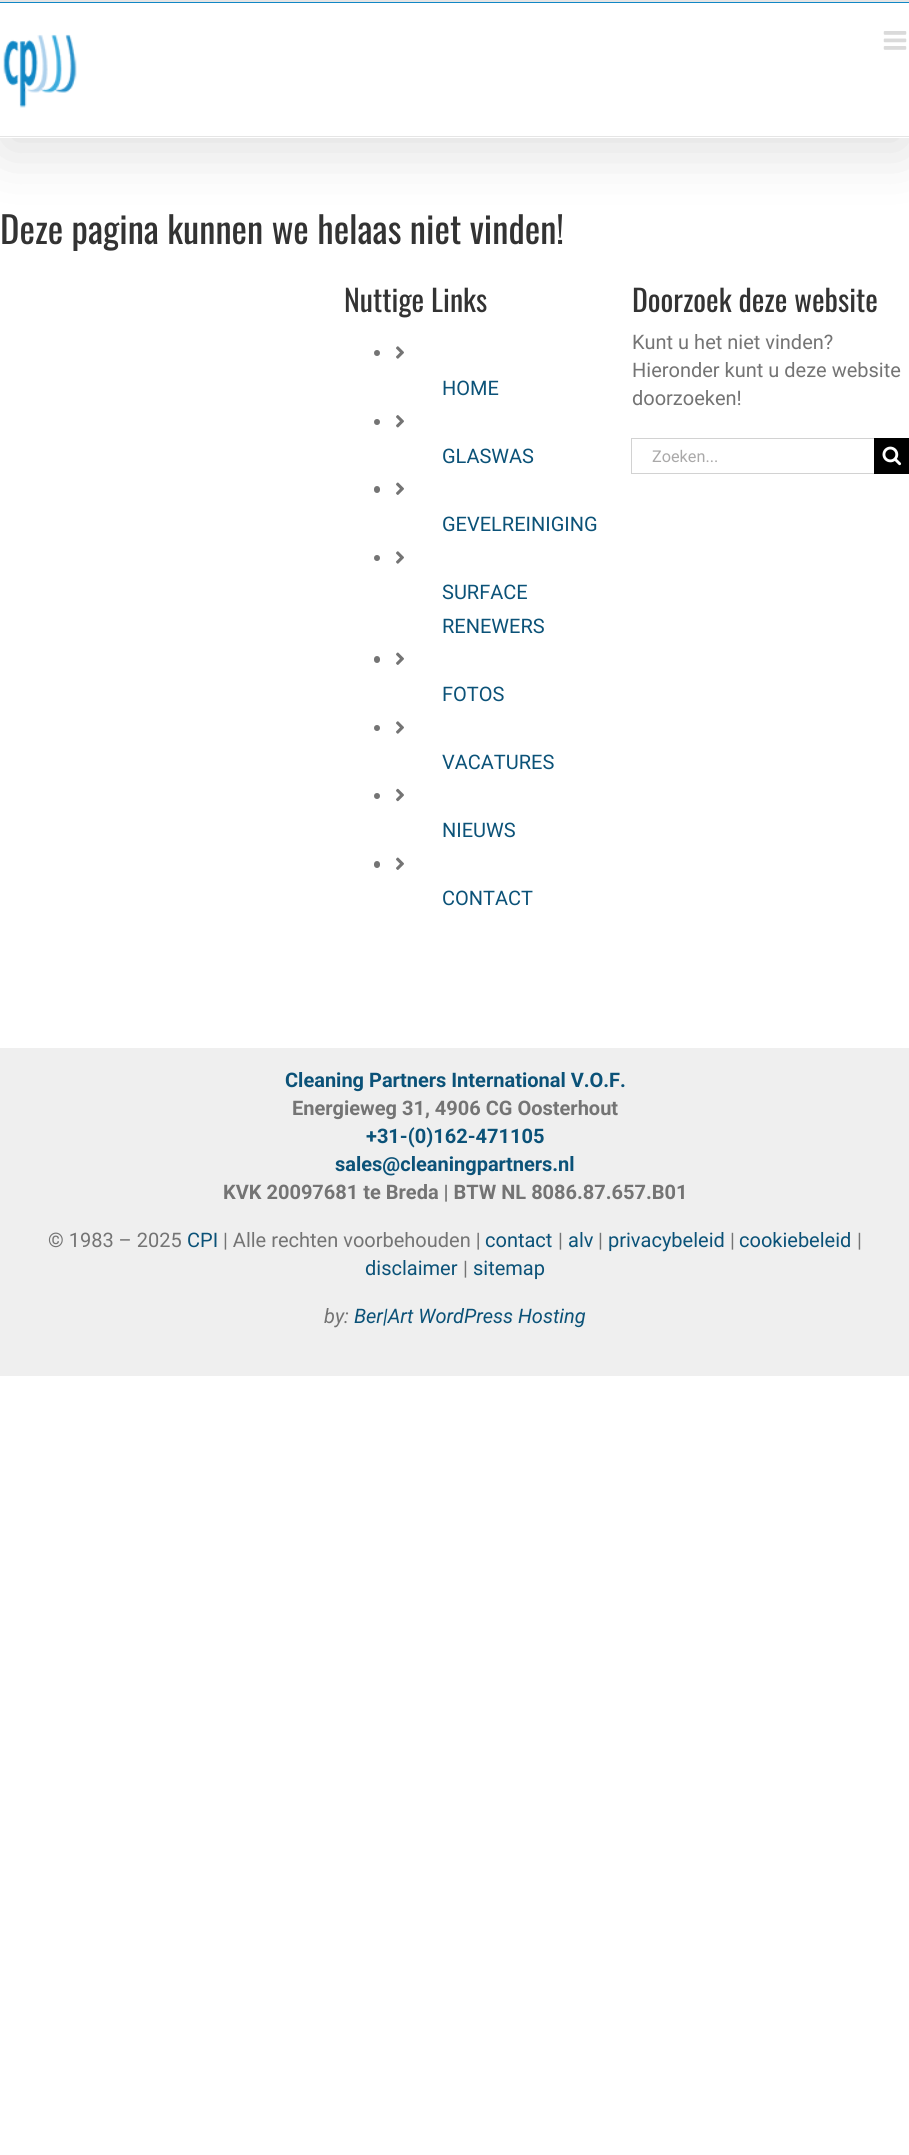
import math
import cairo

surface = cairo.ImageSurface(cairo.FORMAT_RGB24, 909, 2155)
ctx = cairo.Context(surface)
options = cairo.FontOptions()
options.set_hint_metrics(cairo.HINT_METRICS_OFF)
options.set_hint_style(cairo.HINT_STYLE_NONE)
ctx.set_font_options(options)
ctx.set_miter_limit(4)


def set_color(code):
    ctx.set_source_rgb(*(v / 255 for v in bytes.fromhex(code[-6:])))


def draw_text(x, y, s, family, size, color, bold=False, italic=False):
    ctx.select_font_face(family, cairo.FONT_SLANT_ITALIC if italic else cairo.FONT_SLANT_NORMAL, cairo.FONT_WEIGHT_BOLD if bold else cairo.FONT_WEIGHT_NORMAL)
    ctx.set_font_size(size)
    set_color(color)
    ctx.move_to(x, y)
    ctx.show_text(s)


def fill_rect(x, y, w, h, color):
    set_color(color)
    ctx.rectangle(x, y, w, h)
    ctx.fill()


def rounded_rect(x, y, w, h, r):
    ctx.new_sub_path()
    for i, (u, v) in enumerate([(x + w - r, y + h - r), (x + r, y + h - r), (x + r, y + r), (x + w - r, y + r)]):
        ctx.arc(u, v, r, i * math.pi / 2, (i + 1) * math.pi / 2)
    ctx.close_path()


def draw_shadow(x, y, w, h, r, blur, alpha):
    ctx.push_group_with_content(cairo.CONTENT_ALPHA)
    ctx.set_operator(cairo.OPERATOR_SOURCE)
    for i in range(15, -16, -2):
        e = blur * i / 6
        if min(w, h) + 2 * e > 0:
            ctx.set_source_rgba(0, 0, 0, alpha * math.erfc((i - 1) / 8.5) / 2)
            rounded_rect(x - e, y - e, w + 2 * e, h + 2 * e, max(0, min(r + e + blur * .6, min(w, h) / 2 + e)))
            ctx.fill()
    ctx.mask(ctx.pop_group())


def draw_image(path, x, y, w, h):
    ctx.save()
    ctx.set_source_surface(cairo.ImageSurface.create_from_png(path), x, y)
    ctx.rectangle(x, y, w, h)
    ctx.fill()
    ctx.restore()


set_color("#ffffff")
ctx.paint()
set_color("#000000")
draw_shadow(3, 15, 905, 133, 0, 31, 0.14)
fill_rect(0, 2, 909, 1, "#1187c5")
fill_rect(0, 0, 909, 2, "#e5e5e5")
fill_rect(0, 3, 909, 135, "#ffffff")
fill_rect(0, 136, 909, 1, "#e5e5e5")
draw_image("assets/img1.png", 3, 34, 74, 74)
draw_image("assets/img2.png", 883, 31, 24, 19)
draw_text(0, 244, "Deze pagina kunnen we helaas niet vinden!", "Oswald", 36.8, "#333333")
draw_text(344, 312, "Nuttige Links", "Oswald", 30, "#333333")
set_color("#747474")
ctx.new_path()
ctx.arc(377, 353, 3, 0, 2 * math.pi)
ctx.fill()
draw_image("assets/img3.png", 396, 346, 8, 13)
draw_text(442, 395, "HOME", "Roboto", 20, "#0b5278")
set_color("#747474")
ctx.new_path()
ctx.arc(377, 422, 3, 0, 2 * math.pi)
ctx.fill()
draw_image("assets/img4.png", 396, 415, 8, 13)
draw_text(442, 463, "GLASWAS", "Roboto", 20, "#0b5278")
set_color("#747474")
rounded_rect(374, 486, 6, 7, 3)
ctx.fill()
draw_image("assets/img5.png", 396, 482, 8, 13)
draw_text(442, 531, "GEVELREINIGING", "Roboto", 20, "#0b5278")
set_color("#747474")
ctx.new_path()
ctx.arc(377, 558, 3, 0, 2 * math.pi)
ctx.fill()
draw_image("assets/img3.png", 396, 551, 8, 13)
draw_text(442, 599, "SURFACE", "Roboto", 20, "#0b5278")
draw_text(442, 633, "RENEWERS", "Roboto", 20, "#0b5278")
set_color("#747474")
rounded_rect(374, 656, 6, 7, 3)
ctx.fill()
draw_image("assets/img5.png", 396, 652, 8, 13)
draw_text(442, 701, "FOTOS", "Roboto", 20, "#0b5278")
set_color("#747474")
ctx.new_path()
ctx.arc(377, 728, 3, 0, 2 * math.pi)
ctx.fill()
draw_image("assets/img3.png", 396, 721, 8, 13)
draw_text(442, 769, "VACATURES", "Roboto", 20, "#0b5278")
set_color("#747474")
ctx.new_path()
ctx.arc(377, 796, 3, 0, 2 * math.pi)
ctx.fill()
draw_image("assets/img6.png", 396, 788, 8, 14)
draw_text(442, 837, "NIEUWS", "Roboto", 20, "#0b5278")
set_color("#747474")
rounded_rect(374, 861, 6, 7, 3)
ctx.fill()
draw_image("assets/img5.png", 396, 857, 8, 13)
draw_text(442, 905, "CONTACT", "Roboto", 20, "#0b5278")
draw_text(632, 312, "Doorzoek deze website", "Oswald", 30, "#333333")
draw_text(632, 349, "Kunt u het niet vinden?", "Roboto", 20, "#747474")
draw_text(632, 377, "Hieronder kunt u deze website", "Roboto", 20, "#747474")
draw_text(632, 405, "doorzoeken!", "Roboto", 20, "#747474")
fill_rect(631, 438, 243, 1, "#d2d2d2")
fill_rect(631, 473, 243, 1, "#d2d2d2")
fill_rect(631, 438, 1, 36, "#d2d2d2")
draw_text(652, 462, "Zoeken...", "Roboto", 16.25, "#aaa9a9")
fill_rect(874, 438, 35, 36, "#000000")
draw_image("assets/img7.png", 882, 446, 20, 20)
fill_rect(0, 1048, 909, 328, "#efefef")
draw_text(285, 1087, "Cleaning Partners International V.O.F.", "Roboto", 20, "#0b5278", bold=True)
draw_text(292, 1115, "Energieweg 31, 4906 CG Oosterhout", "Roboto", 20, "#747474", bold=True)
draw_text(366, 1143, "+31-(0)162-471105", "Roboto", 20, "#0b5278", bold=True)
draw_text(335, 1171, "sales@cleaningpartners.nl", "Roboto", 20, "#0b5278", bold=True)
draw_text(223, 1199, "KVK 20097681 te Breda | BTW NL 8086.87.657.B01", "Roboto", 20, "#747474", bold=True)
draw_text(48, 1247, "© 1983 – 2025", "Roboto", 20, "#747474")
draw_text(187, 1247, "CPI", "Roboto", 20, "#0b5278")
draw_text(223, 1247, "| Alle rechten voorbehouden |", "Roboto", 20, "#747474")
draw_text(485, 1247, "contact", "Roboto", 20, "#0b5278")
draw_text(558, 1247, "|", "Roboto", 20, "#747474")
draw_text(568, 1247, "alv", "Roboto", 20, "#0b5278")
draw_text(598, 1247, "|", "Roboto", 20, "#747474")
draw_text(608, 1247, "privacybeleid", "Roboto", 20, "#0b5278")
draw_text(730, 1247, "|", "Roboto", 20, "#747474")
draw_text(739, 1247, "cookiebeleid", "Roboto", 20, "#0b5278")
draw_text(857, 1247, "|", "Roboto", 20, "#747474")
draw_text(365, 1275, "disclaimer", "Roboto", 20, "#0b5278")
draw_text(463, 1275, "|", "Roboto", 20, "#747474")
draw_text(473, 1275, "sitemap", "Roboto", 20, "#0b5278")
draw_text(324, 1323, "by:", "Roboto", 20, "#747474", italic=True)
draw_text(354, 1323, "Ber|Art WordPress Hosting", "Roboto", 20, "#0b5278", italic=True)
surface.write_to_png("output.png")
